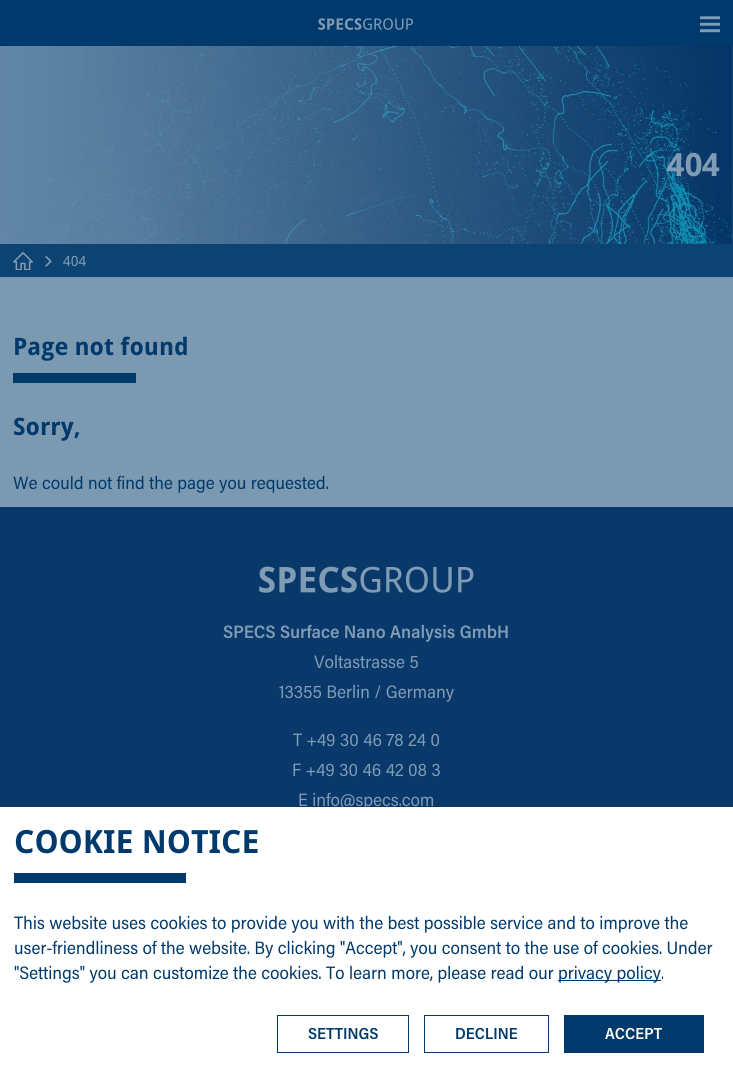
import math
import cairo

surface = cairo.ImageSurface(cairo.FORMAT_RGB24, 733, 1083)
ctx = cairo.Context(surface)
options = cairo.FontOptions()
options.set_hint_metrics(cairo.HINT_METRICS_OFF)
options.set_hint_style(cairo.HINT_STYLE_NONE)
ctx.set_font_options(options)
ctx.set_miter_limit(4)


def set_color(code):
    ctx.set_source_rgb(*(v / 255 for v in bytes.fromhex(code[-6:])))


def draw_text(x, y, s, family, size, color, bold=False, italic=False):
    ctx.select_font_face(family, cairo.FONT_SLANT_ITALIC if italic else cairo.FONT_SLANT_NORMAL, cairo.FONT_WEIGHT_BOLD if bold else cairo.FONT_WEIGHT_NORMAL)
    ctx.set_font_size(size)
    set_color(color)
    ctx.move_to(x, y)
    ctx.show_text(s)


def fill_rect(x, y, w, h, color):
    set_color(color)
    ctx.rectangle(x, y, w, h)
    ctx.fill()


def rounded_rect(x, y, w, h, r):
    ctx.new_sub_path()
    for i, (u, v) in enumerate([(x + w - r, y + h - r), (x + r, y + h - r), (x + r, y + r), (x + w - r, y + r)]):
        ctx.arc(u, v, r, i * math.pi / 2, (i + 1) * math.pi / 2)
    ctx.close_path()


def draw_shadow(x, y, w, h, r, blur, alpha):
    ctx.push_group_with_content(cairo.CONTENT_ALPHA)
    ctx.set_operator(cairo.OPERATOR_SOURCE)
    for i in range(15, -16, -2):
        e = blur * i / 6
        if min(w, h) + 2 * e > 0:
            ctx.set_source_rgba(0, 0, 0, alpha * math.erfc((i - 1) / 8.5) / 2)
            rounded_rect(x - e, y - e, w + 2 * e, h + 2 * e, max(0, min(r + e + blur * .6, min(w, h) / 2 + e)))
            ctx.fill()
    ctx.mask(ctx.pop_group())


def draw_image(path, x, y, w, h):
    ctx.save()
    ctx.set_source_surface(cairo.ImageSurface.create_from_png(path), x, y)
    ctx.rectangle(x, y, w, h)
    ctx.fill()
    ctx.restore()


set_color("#ffffff")
ctx.paint()
fill_rect(0, 0, 733, 46, "#00396b")
draw_image("assets/img1.png", 318, 18, 95, 12)
draw_image("assets/img2.png", 700, 16, 20, 17)
draw_image("assets/img3.png", 0, 46, 733, 198)
draw_text(667, 176, "404", "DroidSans", 32, "#809cb5", bold=True)
fill_rect(0, 244, 733, 33, "#0d4373")
draw_image("assets/img4.png", 13, 252, 20, 18)
draw_image("assets/img5.png", 45, 255, 7, 12)
draw_text(63, 266, "404", "DroidSans", 14, "#809cb5")
fill_rect(0, 277, 733, 230, "#7c99b2")
draw_text(13, 355, "Page not found", "DroidSans", 24, "#00396b", bold=True)
fill_rect(13, 373, 123, 10, "#00396b")
draw_text(13, 435, "Sorry,", "DroidSans", 24, "#00396b", bold=True)
draw_image("assets/img6.png", 13, 475, 315, 18)
fill_rect(0, 507, 733, 300, "#09386a")
draw_image("assets/img7.png", 259, 566, 215, 27)
draw_image("assets/img8.png", 223, 624, 285, 18)
draw_image("assets/img9.png", 314, 654, 104, 15)
draw_image("assets/img10.png", 279, 684, 175, 18)
draw_image("assets/img11.png", 293, 733, 147, 14)
draw_image("assets/img12.png", 293, 763, 147, 14)
draw_image("assets/img13.png", 299, 792, 135, 15)
set_color("#000000")
draw_shadow(3, 810, 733, 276, 0, 2.5, 0.5)
fill_rect(0, 807, 733, 276, "#ffffff")
draw_text(14, 853, "COOKIE NOTICE", "DroidSans", 32, "#00396b", bold=True)
fill_rect(14, 873, 172, 10, "#00396b")
draw_image("assets/img14.png", 14, 915, 674, 18)
draw_image("assets/img15.png", 15, 940, 698, 18)
draw_image("assets/img16.png", 14, 965, 307, 18)
draw_image("assets/img17.png", 326, 965, 228, 18)
fill_rect(558, 980, 103, 1, "#00396b")
draw_image("assets/img18.png", 559, 965, 102, 18)
ctx.new_path()
ctx.move_to(662, 979)
ctx.line_to(662, 976.5)
ctx.line_to(663, 976.5)
ctx.line_to(663, 979)
ctx.close_path()
ctx.fill()
ctx.rectangle(277.5, 1015.5, 131, 37)
ctx.set_line_width(1)
ctx.stroke()
draw_image("assets/img19.png", 308, 1027, 70, 13)
ctx.rectangle(424.5, 1015.5, 124, 37)
ctx.stroke()
draw_image("assets/img20.png", 456, 1027, 62, 13)
fill_rect(564, 1015, 140, 38, "#00396b")
draw_image("assets/img21.png", 605, 1027, 57, 13)
surface.write_to_png("output.png")
